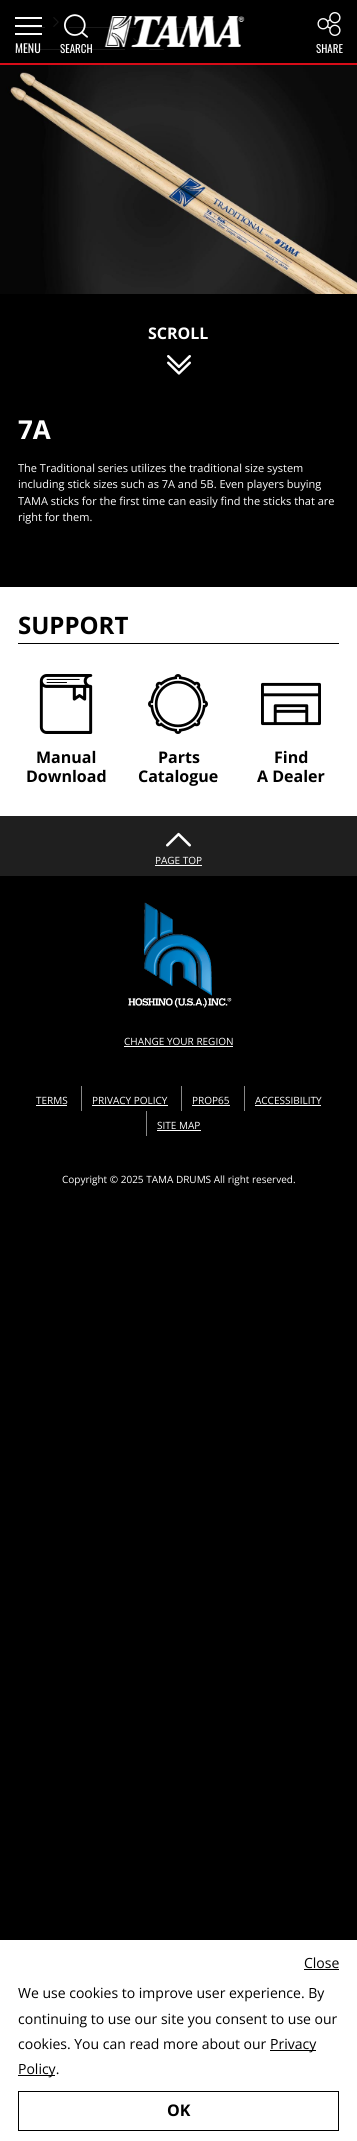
import math
import cairo

surface = cairo.ImageSurface(cairo.FORMAT_RGB24, 357, 2141)
ctx = cairo.Context(surface)
options = cairo.FontOptions()
options.set_hint_metrics(cairo.HINT_METRICS_OFF)
options.set_hint_style(cairo.HINT_STYLE_NONE)
ctx.set_font_options(options)
ctx.set_miter_limit(4)


def set_color(code):
    ctx.set_source_rgb(*(v / 255 for v in bytes.fromhex(code[-6:])))


def draw_text(x, y, s, family, size, color, bold=False, italic=False):
    ctx.select_font_face(family, cairo.FONT_SLANT_ITALIC if italic else cairo.FONT_SLANT_NORMAL, cairo.FONT_WEIGHT_BOLD if bold else cairo.FONT_WEIGHT_NORMAL)
    ctx.set_font_size(size)
    set_color(color)
    ctx.move_to(x, y)
    ctx.show_text(s)


def fill_rect(x, y, w, h, color):
    set_color(color)
    ctx.rectangle(x, y, w, h)
    ctx.fill()


def draw_image(path, x, y, w, h):
    ctx.save()
    ctx.set_source_surface(cairo.ImageSurface.create_from_png(path), x, y)
    ctx.rectangle(x, y, w, h)
    ctx.fill()
    ctx.restore()


set_color("#000000")
ctx.paint()
draw_image("assets/img4.png", 53, 17, 6, 10)
fill_rect(20, 27, 25, 1, "#ffffff")
fill_rect(69, 27, 67, 1, "#ffffff")
draw_image("assets/img5.png", 212, 19, 3, 6)
fill_rect(160, 27, 41, 1, "#ffffff")
draw_image("assets/img4.png", 133, 38, 6, 10)
fill_rect(20, 49, 105, 1, "#ffffff")
fill_rect(149, 49, 15, 1, "#ffffff")
ctx.set_source_rgba(0, 0, 0, 0.9)
ctx.rectangle(20, 17, 195, 33)
ctx.fill()
fill_rect(0, 63, 357, 2, "#d80c18")
draw_image("assets/img1.png", 104, 16, 141, 31)
fill_rect(15, 17, 27, 2, "#ffffff")
fill_rect(15, 25, 27, 2, "#ffffff")
fill_rect(15, 33, 27, 2, "#ffffff")
draw_text(15, 53, "MENU", "Oswald", 12, "#ffffff")
draw_image("assets/img2.png", 64, 14, 24, 24)
draw_text(60, 53, "SEARCH", "Oswald", 11, "#ffffff")
draw_image("assets/img3.png", 317, 12, 24, 24)
draw_text(316, 53, "SHARE", "Oswald", 11, "#ffffff")
fill_rect(0, 1940, 357, 201, "#ffffff")
draw_text(304, 1968, "Close", "Open Sans", 14, "#000000")
fill_rect(304, 1969, 35, 1, "#000000")
draw_text(18, 1998, "We use cookies to improve user experience. By", "Open Sans", 14, "#000000")
draw_text(18, 2024, "continuing to use our site you consent to use our", "Open Sans", 14, "#000000")
draw_text(18, 2049, "cookies. You can read more about our", "Open Sans", 14, "#000000")
fill_rect(270, 2050, 46, 1, "#000000")
draw_text(270, 2049, "Privacy", "Open Sans", 14, "#000000")
fill_rect(18, 2075, 37, 1, "#000000")
draw_text(18, 2074, "Policy.", "Open Sans", 14, "#000000")
ctx.rectangle(18.5, 2091.5, 320, 39)
ctx.set_line_width(1)
ctx.stroke()
draw_text(167, 2116, "OK", "Open Sans", 16, "#000000", bold=True)
draw_image("assets/img6.png", 0, 65, 357, 229)
draw_text(148, 339, "SCROLL", "Open Sans", 16, "#ffffff", bold=True)
draw_image("assets/img7.png", 167, 355, 24, 20)
draw_text(18, 439, "7A", "Open Sans", 26, "#ffffff", bold=True)
draw_text(18, 472, "The Traditional series utilizes the traditional size system", "Open Sans", 11, "#ffffff")
draw_text(18, 488, "including stick sizes such as 7A and 5B. Even players buying", "Open Sans", 11, "#ffffff")
draw_text(18, 505, "TAMA sticks for the first time can easily find the sticks that are", "Open Sans", 11, "#ffffff")
draw_text(18, 521, "right for them.", "Open Sans", 11, "#ffffff")
fill_rect(0, 587, 357, 229, "#ffffff")
fill_rect(18, 643, 321, 1, "#000000")
draw_text(18, 634, "SUPPORT", "Open Sans", 24, "#000000", bold=True)
draw_image("assets/img8.png", 39, 674, 54, 60)
draw_text(36, 763, "Manual", "Open Sans", 16, "#000000", bold=True)
draw_text(26, 782, "Download", "Open Sans", 16, "#000000", bold=True)
draw_image("assets/img9.png", 148, 674, 60, 60)
draw_text(158, 763, "Parts", "Open Sans", 16, "#000000", bold=True)
draw_text(138, 782, "Catalogue", "Open Sans", 16, "#000000", bold=True)
draw_image("assets/img10.png", 261, 682, 60, 44)
draw_text(274, 763, "Find", "Open Sans", 16, "#000000", bold=True)
draw_text(257, 782, "A Dealer", "Open Sans", 16, "#000000", bold=True)
fill_rect(0, 816, 357, 60, "#1f1f1f")
draw_image("assets/img11.png", 166, 832, 25, 15)
draw_text(155, 864, "PAGE TOP", "Open Sans", 10, "#ffffff")
fill_rect(155, 865, 47, 1, "#ffffff")
draw_image("assets/img12.png", 128, 902, 104, 106)
draw_text(124, 1045, "CHANGE YOUR REGION", "Open Sans", 10, "#ffffff")
fill_rect(124, 1046, 109, 1, "#ffffff")
draw_text(36, 1104, "TERMS", "Open Sans", 10, "#ffffff")
fill_rect(36, 1105, 31, 1, "#ffffff")
fill_rect(81, 1086, 1, 25, "#888888")
draw_text(92, 1104, "PRIVACY POLICY", "Open Sans", 10, "#ffffff")
fill_rect(92, 1105, 76, 1, "#ffffff")
fill_rect(181, 1086, 1, 25, "#888888")
draw_text(192, 1104, "PROP65", "Open Sans", 10, "#ffffff")
fill_rect(192, 1105, 38, 1, "#ffffff")
fill_rect(244, 1086, 1, 25, "#888888")
draw_text(255, 1104, "ACCESSIBILITY", "Open Sans", 10, "#ffffff")
fill_rect(255, 1105, 66, 1, "#ffffff")
fill_rect(146, 1111, 1, 25, "#888888")
draw_text(157, 1129, "SITE MAP", "Open Sans", 10, "#ffffff")
fill_rect(157, 1130, 44, 1, "#ffffff")
draw_text(62, 1183, "Copyright © 2025 TAMA DRUMS All right reserved.", "Open Sans", 10, "#ffffff")
surface.write_to_png("output.png")
